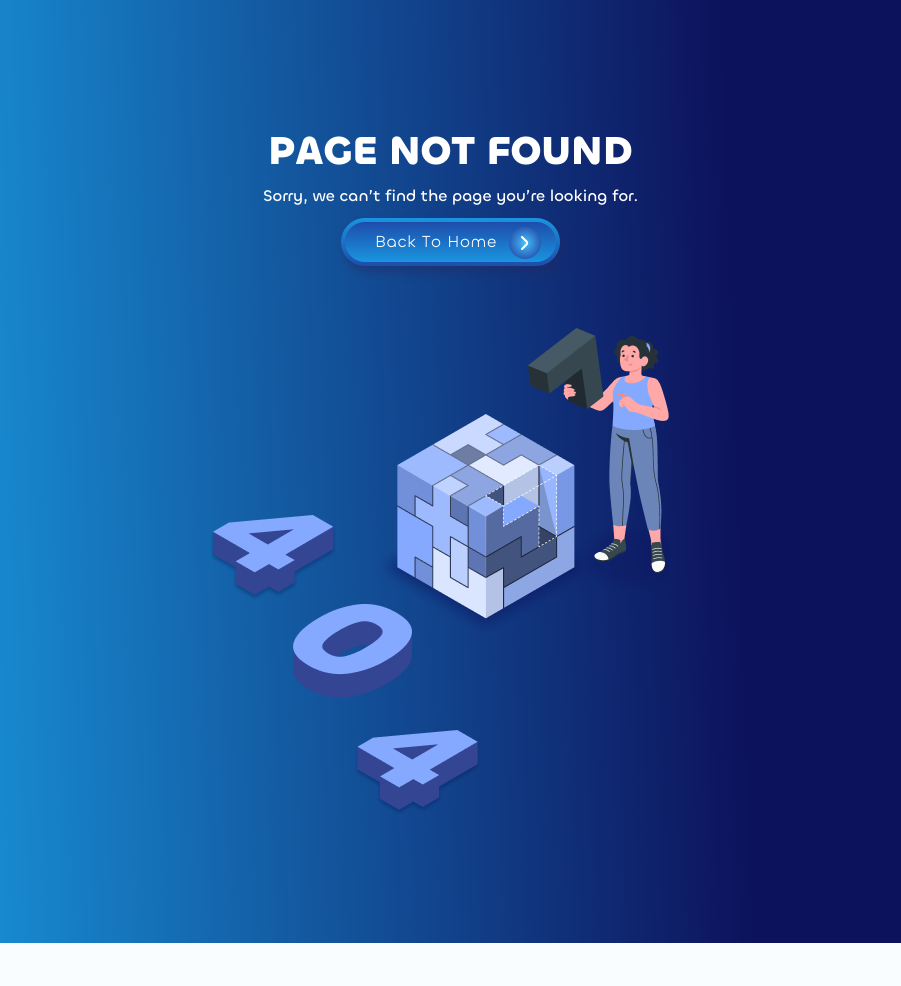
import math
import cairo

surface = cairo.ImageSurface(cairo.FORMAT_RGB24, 901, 986)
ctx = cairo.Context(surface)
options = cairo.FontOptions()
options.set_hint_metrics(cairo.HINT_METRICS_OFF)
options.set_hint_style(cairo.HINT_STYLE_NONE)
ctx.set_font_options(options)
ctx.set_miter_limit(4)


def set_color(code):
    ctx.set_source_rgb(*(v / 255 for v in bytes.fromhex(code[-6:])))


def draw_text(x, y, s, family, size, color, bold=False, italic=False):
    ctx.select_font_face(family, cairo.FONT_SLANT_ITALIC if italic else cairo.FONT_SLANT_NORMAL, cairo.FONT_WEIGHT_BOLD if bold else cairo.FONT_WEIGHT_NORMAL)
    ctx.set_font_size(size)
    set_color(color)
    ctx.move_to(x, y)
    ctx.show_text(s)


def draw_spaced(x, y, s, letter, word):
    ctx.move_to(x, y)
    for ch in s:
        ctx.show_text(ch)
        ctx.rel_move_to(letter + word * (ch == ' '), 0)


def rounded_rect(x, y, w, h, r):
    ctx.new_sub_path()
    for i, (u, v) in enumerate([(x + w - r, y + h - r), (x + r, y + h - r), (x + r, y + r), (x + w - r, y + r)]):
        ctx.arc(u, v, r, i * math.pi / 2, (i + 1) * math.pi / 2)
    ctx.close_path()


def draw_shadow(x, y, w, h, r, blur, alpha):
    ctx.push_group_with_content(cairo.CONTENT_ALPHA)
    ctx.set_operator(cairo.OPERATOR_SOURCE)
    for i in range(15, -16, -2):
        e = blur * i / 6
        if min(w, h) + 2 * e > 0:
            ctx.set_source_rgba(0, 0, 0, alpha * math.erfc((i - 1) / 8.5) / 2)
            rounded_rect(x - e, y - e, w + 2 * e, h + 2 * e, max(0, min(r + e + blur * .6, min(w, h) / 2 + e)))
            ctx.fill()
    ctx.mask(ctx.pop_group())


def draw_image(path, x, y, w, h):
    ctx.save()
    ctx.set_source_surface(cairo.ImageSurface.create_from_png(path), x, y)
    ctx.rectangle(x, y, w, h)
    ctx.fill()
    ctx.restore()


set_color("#fafdff")
ctx.paint()
gradient = cairo.LinearGradient(-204, 494, 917, 455)
gradient.add_color_stop_rgba(0, 0.102, 0.655, 0.925, 1)
gradient.add_color_stop_rgba(0.84, 0.051, 0.071, 0.361, 1)
ctx.set_source(gradient)
ctx.rectangle(0, 0, 901, 943)
ctx.fill()
draw_text(268, 164, "PAGE NOT FOUND", "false", 40, "#ffffff", bold=True)
draw_text(263, 201, "Sorry, we can’t find the page you’re looking for.", "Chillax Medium", 16, "#ffffff")
set_color("#232763")
draw_shadow(345, 224, 219, 48, 24, 5, 0.5)
gradient = cairo.LinearGradient(451, 218, 451, 266)
gradient.add_color_stop_rgba(0, 0.102, 0.584, 0.875, 1)
gradient.add_color_stop_rgba(1, 0.114, 0.302, 0.671, 1)
ctx.set_source(gradient)
rounded_rect(341, 218, 219, 48, 24)
ctx.fill()
gradient = cairo.LinearGradient(451, 262, 451, 222)
gradient.add_color_stop_rgba(0, 0.102, 0.584, 0.875, 1)
gradient.add_color_stop_rgba(1, 0.114, 0.302, 0.671, 1)
ctx.set_source(gradient)
rounded_rect(345, 222, 211, 40, 20)
ctx.fill()
ctx.select_font_face("Chillax", cairo.FONT_SLANT_NORMAL, cairo.FONT_WEIGHT_BOLD)
set_color("#ffffff")
draw_spaced(375, 247, "Back To Home", 1, 0)
gradient = cairo.RadialGradient(525, 243, 0, 525, 243, 23)
gradient.add_color_stop_rgba(0, 0.263, 0.753, 0.992, 1)
gradient.add_color_stop_rgba(1, 0.118, 0.184, 0.588, 1)
ctx.set_source(gradient)
ctx.new_path()
ctx.arc(525, 243, 16, 0, 2 * math.pi)
ctx.fill()
draw_image("assets/img1.png", 521, 236, 8, 14)
draw_image("assets/img2.png", 211, 328, 458, 486)
surface.write_to_png("output.png")
